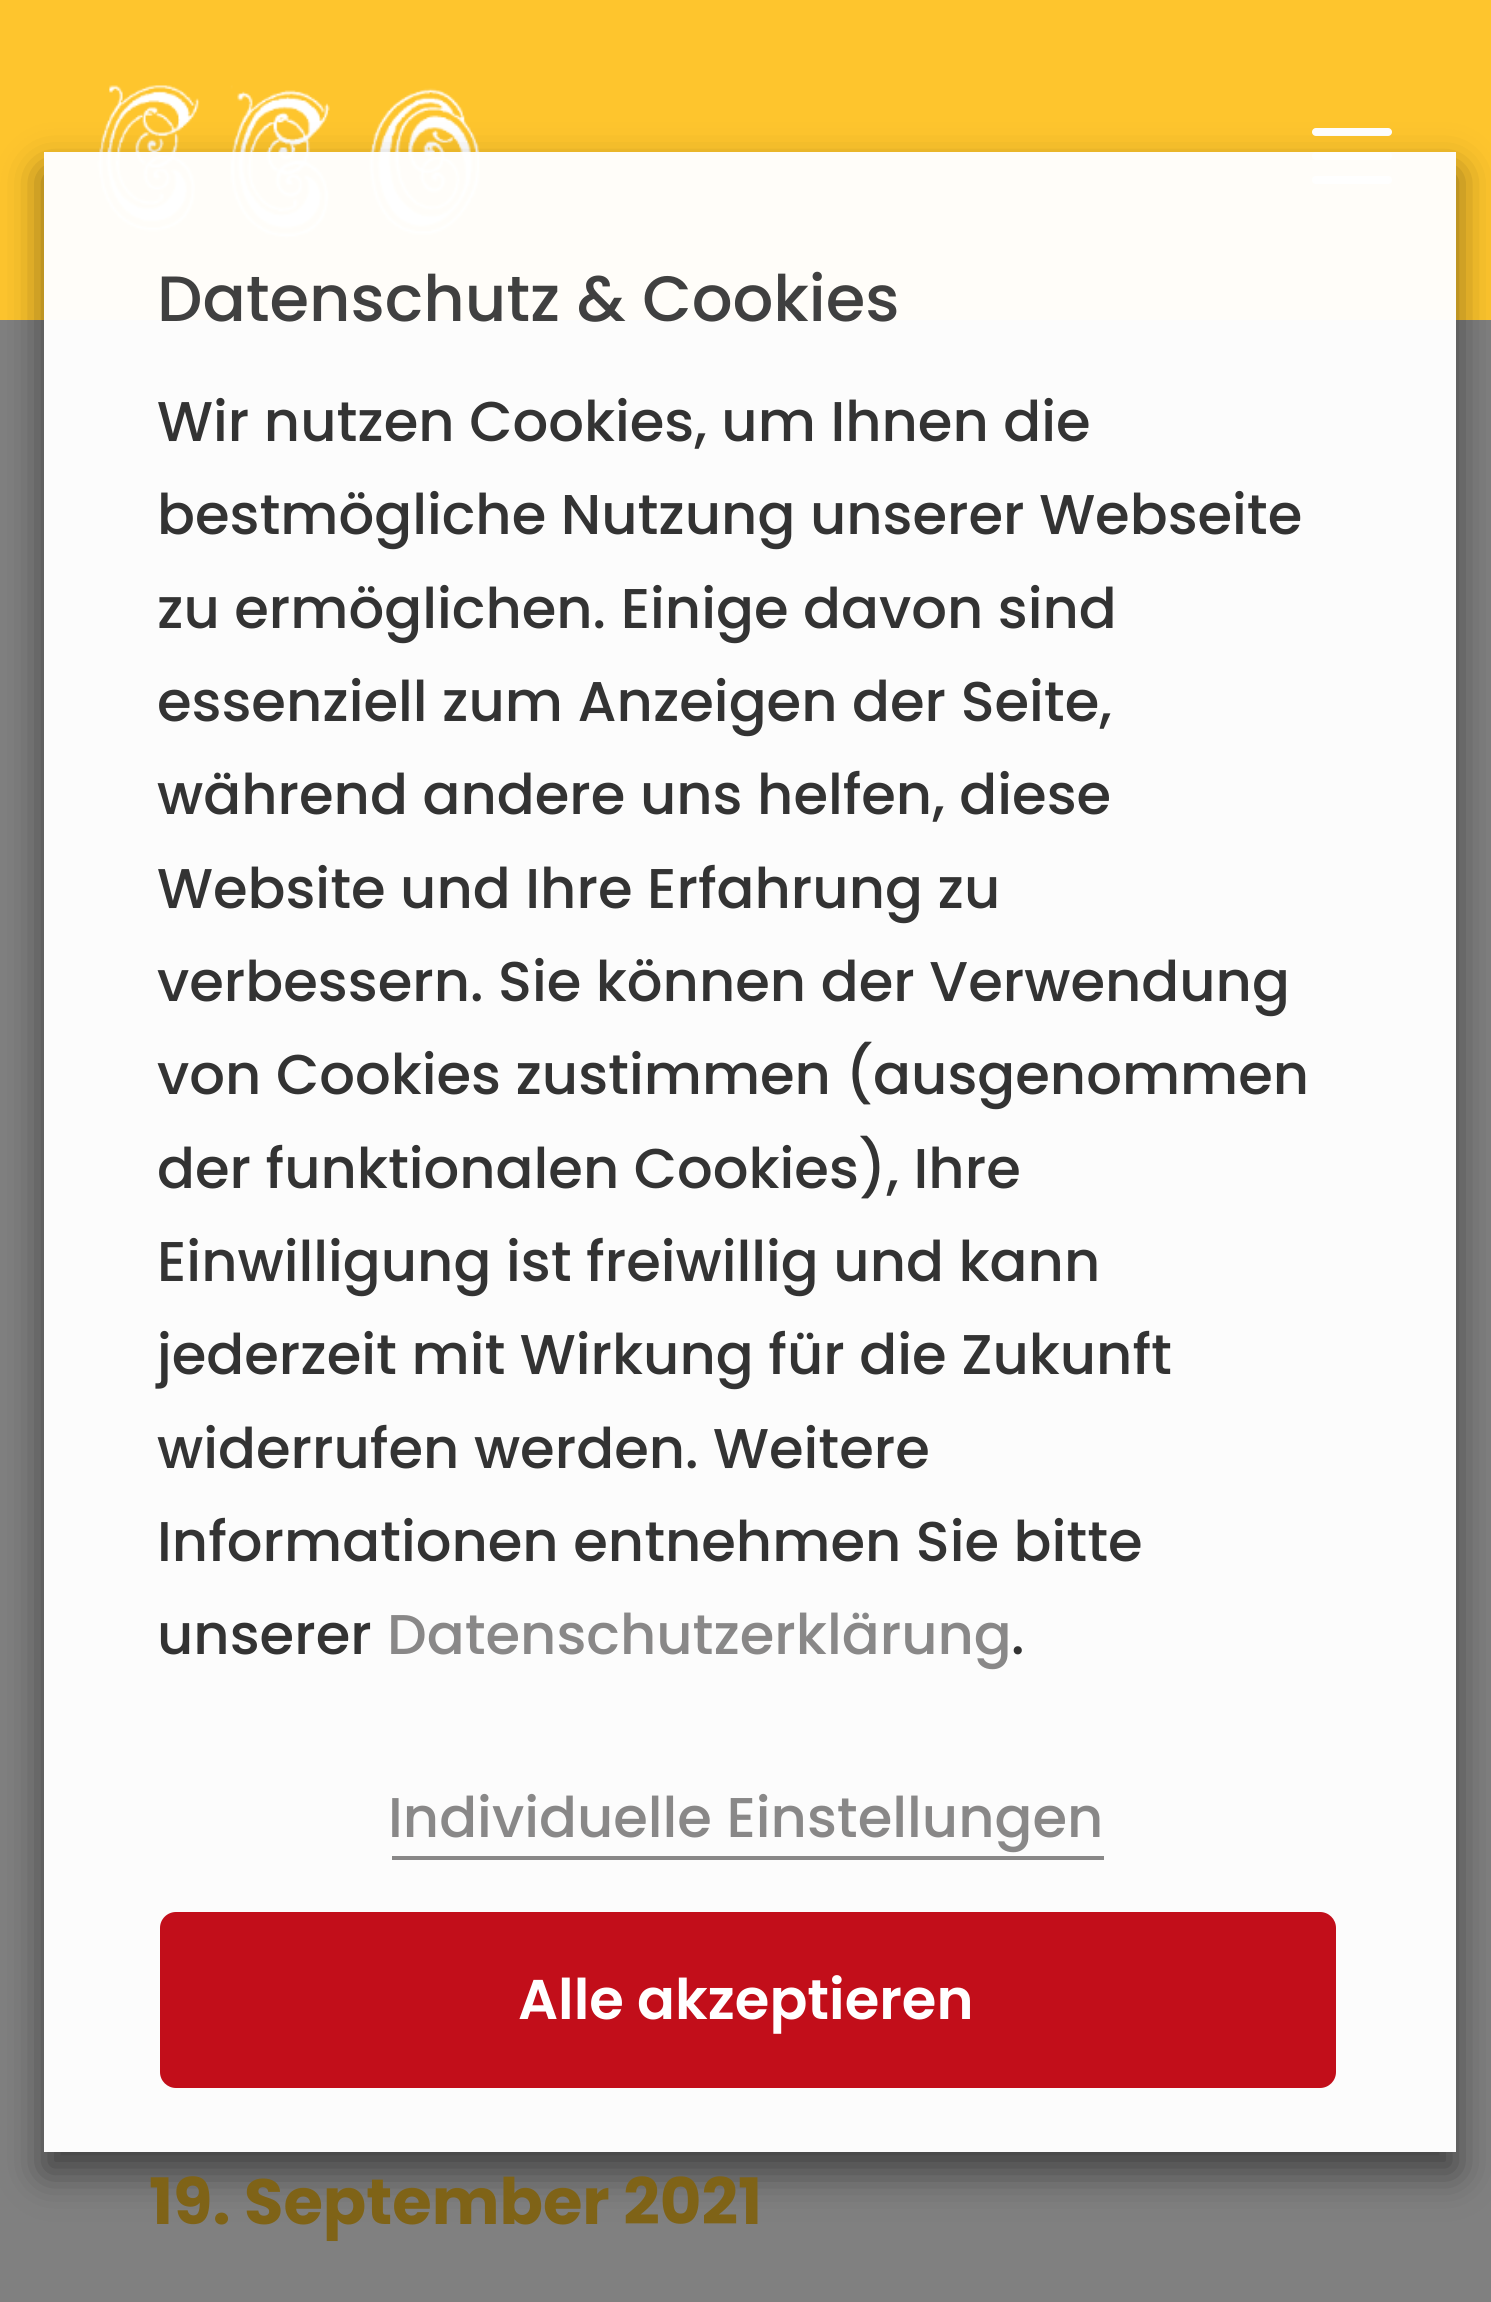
import math
import cairo

surface = cairo.ImageSurface(cairo.FORMAT_RGB24, 1491, 2302)
ctx = cairo.Context(surface)
options = cairo.FontOptions()
options.set_hint_metrics(cairo.HINT_METRICS_OFF)
options.set_hint_style(cairo.HINT_STYLE_NONE)
ctx.set_font_options(options)
ctx.set_miter_limit(4)


def set_color(code):
    ctx.set_source_rgb(*(v / 255 for v in bytes.fromhex(code[-6:])))


def draw_text(x, y, s, family, size, color, bold=False, italic=False):
    ctx.select_font_face(family, cairo.FONT_SLANT_ITALIC if italic else cairo.FONT_SLANT_NORMAL, cairo.FONT_WEIGHT_BOLD if bold else cairo.FONT_WEIGHT_NORMAL)
    ctx.set_font_size(size)
    set_color(color)
    ctx.move_to(x, y)
    ctx.show_text(s)


def fill_rect(x, y, w, h, color):
    set_color(color)
    ctx.rectangle(x, y, w, h)
    ctx.fill()


def rounded_rect(x, y, w, h, r):
    ctx.new_sub_path()
    for i, (u, v) in enumerate([(x + w - r, y + h - r), (x + r, y + h - r), (x + r, y + r), (x + w - r, y + r)]):
        ctx.arc(u, v, r, i * math.pi / 2, (i + 1) * math.pi / 2)
    ctx.close_path()


def draw_shadow(x, y, w, h, r, blur, alpha):
    ctx.push_group_with_content(cairo.CONTENT_ALPHA)
    ctx.set_operator(cairo.OPERATOR_SOURCE)
    for i in range(15, -16, -2):
        e = blur * i / 6
        if min(w, h) + 2 * e > 0:
            ctx.set_source_rgba(0, 0, 0, alpha * math.erfc((i - 1) / 8.5) / 2)
            rounded_rect(x - e, y - e, w + 2 * e, h + 2 * e, max(0, min(r + e + blur * .6, min(w, h) / 2 + e)))
            ctx.fill()
    ctx.mask(ctx.pop_group())


def draw_image(path, x, y, w, h):
    ctx.save()
    ctx.set_source_surface(cairo.ImageSurface.create_from_png(path), x, y)
    ctx.rectangle(x, y, w, h)
    ctx.fill()
    ctx.restore()


set_color("#808080")
ctx.paint()
fill_rect(0, 0, 1491, 320, "#fec52d")
draw_image("assets/img1.png", 97, 85, 383, 154)
draw_image("assets/img2.png", 1312, 128, 80, 56)
ctx.save()
ctx.set_fill_rule(cairo.FILL_RULE_EVEN_ODD)
ctx.new_path()
ctx.move_to(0, 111)
ctx.line_to(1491, 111)
ctx.line_to(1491, 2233)
ctx.line_to(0, 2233)
ctx.close_path()
ctx.move_to(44, 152)
ctx.line_to(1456, 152)
ctx.line_to(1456, 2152)
ctx.line_to(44, 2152)
ctx.close_path()
ctx.clip()
set_color("#000000")
draw_shadow(44, 172, 1412, 2000, 0, 20, 0.5)
ctx.restore()
ctx.set_source_rgba(1, 1, 1, 0.97)
ctx.rectangle(44, 152, 1412, 2000)
ctx.fill()
draw_text(157, 321, "Datenschutz & Cookies", "Poppins Medium", 64, "#404040")
draw_text(157, 441, "Wir nutzen Cookies, um Ihnen die", "Poppins Medium", 56, "#333333")
draw_text(157, 534, "bestmögliche Nutzung unserer Webseite", "Poppins Medium", 56, "#333333")
draw_text(157, 628, "zu ermöglichen. Einige davon sind", "Poppins Medium", 56, "#333333")
draw_text(157, 721, "essenziell zum Anzeigen der Seite,", "Poppins Medium", 56, "#333333")
draw_text(157, 814, "während andere uns helfen, diese", "Poppins Medium", 56, "#333333")
draw_text(157, 908, "Website und Ihre Erfahrung zu", "Poppins Medium", 56, "#333333")
draw_text(157, 1001, "verbessern. Sie können der Verwendung", "Poppins Medium", 56, "#333333")
draw_text(157, 1094, "von Cookies zustimmen (ausgenommen", "Poppins Medium", 56, "#333333")
draw_text(157, 1188, "der funktionalen Cookies), Ihre", "Poppins Medium", 56, "#333333")
draw_text(157, 1281, "Einwilligung ist freiwillig und kann", "Poppins Medium", 56, "#333333")
draw_text(157, 1374, "jederzeit mit Wirkung für die Zukunft", "Poppins Medium", 56, "#333333")
draw_text(157, 1468, "widerrufen werden. Weitere", "Poppins Medium", 56, "#333333")
draw_text(157, 1561, "Informationen entnehmen Sie bitte", "Poppins Medium", 56, "#333333")
draw_text(157, 1654, "unserer", "Poppins Medium", 56, "#333333")
draw_text(387, 1654, "Datenschutzerklärung", "Poppins Medium", 56, "#898888")
draw_text(1011, 1654, ".", "Poppins Medium", 56, "#333333")
draw_text(388, 1837, "Individuelle Einstellungen", "Poppins Medium", 56, "#898888")
fill_rect(392, 1856, 712, 4, "#898888")
set_color("#c20e1a")
rounded_rect(160, 1912, 1176, 176, 16)
ctx.fill()
draw_text(518, 2019, "Alle akzeptieren", "Poppins SemiBold", 56, "#ffffff")
draw_text(149, 2224, "19. September 2021", "Poppins", 64, "#7f6317", bold=True)
surface.write_to_png("output.png")
